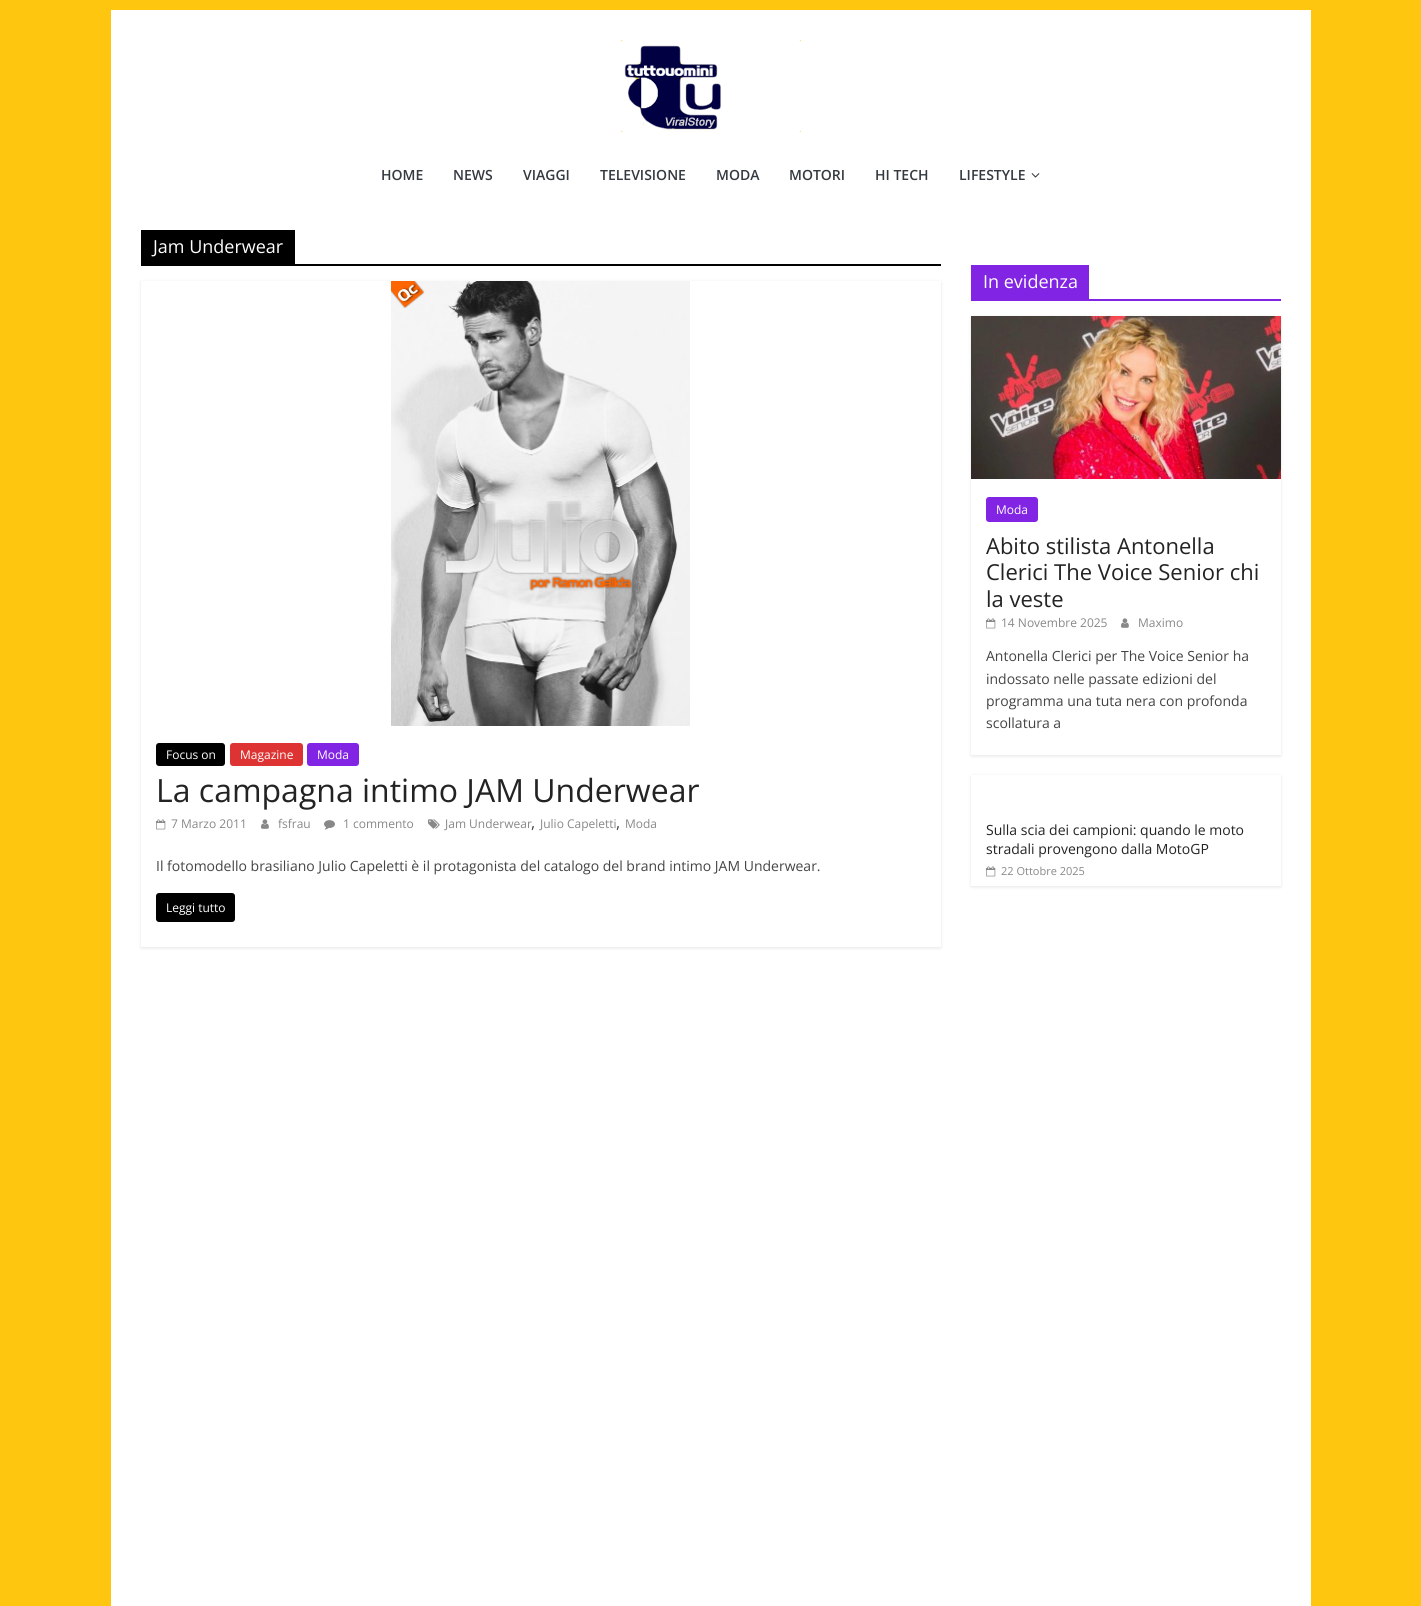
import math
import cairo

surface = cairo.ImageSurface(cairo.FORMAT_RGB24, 1421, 1606)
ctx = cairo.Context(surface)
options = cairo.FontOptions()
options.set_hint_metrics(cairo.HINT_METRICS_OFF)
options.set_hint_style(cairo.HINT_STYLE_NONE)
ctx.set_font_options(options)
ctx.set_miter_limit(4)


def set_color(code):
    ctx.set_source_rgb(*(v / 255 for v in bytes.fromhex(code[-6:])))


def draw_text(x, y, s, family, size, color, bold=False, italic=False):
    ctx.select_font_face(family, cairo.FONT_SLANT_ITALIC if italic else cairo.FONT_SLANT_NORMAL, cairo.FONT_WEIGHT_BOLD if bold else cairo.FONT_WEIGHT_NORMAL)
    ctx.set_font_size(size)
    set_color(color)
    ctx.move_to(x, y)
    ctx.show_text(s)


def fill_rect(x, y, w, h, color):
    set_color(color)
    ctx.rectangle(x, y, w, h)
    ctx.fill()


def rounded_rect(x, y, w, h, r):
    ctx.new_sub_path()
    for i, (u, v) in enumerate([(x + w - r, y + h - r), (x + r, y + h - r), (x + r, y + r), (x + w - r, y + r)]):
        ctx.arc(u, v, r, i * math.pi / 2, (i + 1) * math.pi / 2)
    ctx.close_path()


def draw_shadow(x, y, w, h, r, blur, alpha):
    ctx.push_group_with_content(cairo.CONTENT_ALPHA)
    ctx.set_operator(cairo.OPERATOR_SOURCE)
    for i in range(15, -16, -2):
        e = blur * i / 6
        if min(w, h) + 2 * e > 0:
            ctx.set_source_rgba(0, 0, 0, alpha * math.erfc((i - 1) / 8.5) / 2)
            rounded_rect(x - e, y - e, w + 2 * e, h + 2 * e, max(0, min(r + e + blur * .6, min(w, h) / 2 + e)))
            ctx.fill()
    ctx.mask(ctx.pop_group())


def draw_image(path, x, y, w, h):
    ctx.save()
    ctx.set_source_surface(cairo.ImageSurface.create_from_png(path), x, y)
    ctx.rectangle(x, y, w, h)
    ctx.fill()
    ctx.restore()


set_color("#ffc610")
ctx.paint()
fill_rect(111, 10, 1200, 1596, "#ffffff")
draw_image("assets/img1.png", 621, 40, 180, 92)
draw_text(381, 180, "HOME", "Open Sans SemiBold", 14, "#343a40")
draw_text(453, 180, "NEWS", "Open Sans SemiBold", 14, "#343a40")
draw_text(523, 180, "VIAGGI", "Open Sans SemiBold", 14, "#343a40")
draw_text(600, 180, "TELEVISIONE", "Open Sans SemiBold", 14, "#343a40")
draw_text(716, 180, "MODA", "Open Sans SemiBold", 14, "#343a40")
draw_text(789, 180, "MOTORI", "Open Sans SemiBold", 14, "#343a40")
draw_text(875, 180, "HI TECH", "Open Sans SemiBold", 14, "#343a40")
draw_text(959, 180, "LIFESTYLE", "Open Sans SemiBold", 14, "#343a40")
draw_image("assets/img2.png", 1031, 173, 9, 5)
fill_rect(141, 264, 800, 2, "#000000")
fill_rect(141, 230, 154, 34, "#000000")
draw_text(153, 253, "Jam Underwear", "Open Sans", 18, "#ffffff")
ctx.save()
ctx.set_fill_rule(cairo.FILL_RULE_EVEN_ODD)
ctx.new_path()
ctx.move_to(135, 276)
ctx.line_to(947, 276)
ctx.line_to(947, 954)
ctx.line_to(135, 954)
ctx.close_path()
ctx.move_to(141, 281)
ctx.line_to(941, 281)
ctx.line_to(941, 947)
ctx.line_to(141, 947)
ctx.close_path()
ctx.clip()
set_color("#000000")
draw_shadow(141, 282, 800, 666, 0, 1.5, 0.1)
ctx.restore()
draw_image("assets/img3.png", 391, 281, 299, 445)
set_color("#000000")
rounded_rect(156, 743, 69, 23, 3)
ctx.fill()
draw_text(166, 759, "Focus on", "Open Sans", 12, "#ffffff")
set_color("#dd3333")
rounded_rect(230, 743, 73, 23, 3)
ctx.fill()
draw_text(240, 759, "Magazine", "Open Sans", 12, "#ffffff")
set_color("#8224e3")
rounded_rect(307, 743, 52, 23, 3)
ctx.fill()
draw_text(317, 759, "Moda", "Open Sans", 12, "#ffffff")
draw_text(156, 802, "La campagna intimo JAM Underwear", "Open Sans", 32, "#232323")
draw_image("assets/img4.png", 156, 819, 10, 11)
draw_text(171, 828, "7 Marzo 2011", "Open Sans", 12, "#888888")
draw_image("assets/img5.png", 261, 819, 8, 10)
draw_text(278, 828, "fsfrau", "Open Sans", 12, "#888888")
draw_image("assets/img6.png", 324, 820, 11, 10)
draw_text(343, 828, "1 commento", "Open Sans", 12, "#888888")
draw_image("assets/img7.png", 428, 819, 12, 10)
draw_text(445, 828, "Jam Underwear", "Open Sans", 12, "#888888")
draw_text(531, 828, ",", "Open Sans", 16, "#444444")
draw_text(540, 828, "Julio Capeletti", "Open Sans", 12, "#888888")
draw_text(616, 828, ",", "Open Sans", 16, "#444444")
draw_text(625, 828, "Moda", "Open Sans", 12, "#888888")
draw_text(156, 871, "Il fotomodello brasiliano Julio Capeletti è il protagonista del catalogo del brand intimo JAM Underwear.", "Open Sans", 14, "#444444")
set_color("#000000")
rounded_rect(156, 893, 79, 29, 3)
ctx.fill()
draw_text(166, 912, "Leggi tutto", "Open Sans", 12, "#ffffff")
fill_rect(971, 299, 310, 2, "#8224e3")
fill_rect(971, 265, 118, 34, "#8224e3")
draw_text(983, 288, "In evidenza", "Open Sans", 18, "#ffffff")
ctx.save()
ctx.set_fill_rule(cairo.FILL_RULE_EVEN_ODD)
ctx.new_path()
ctx.move_to(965, 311)
ctx.line_to(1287, 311)
ctx.line_to(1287, 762)
ctx.line_to(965, 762)
ctx.close_path()
ctx.move_to(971, 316)
ctx.line_to(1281, 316)
ctx.line_to(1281, 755)
ctx.line_to(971, 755)
ctx.close_path()
ctx.clip()
set_color("#000000")
draw_shadow(971, 317, 310, 439, 0, 1.5, 0.1)
ctx.restore()
draw_image("assets/img8.png", 971, 316, 310, 163)
set_color("#8224e3")
rounded_rect(986, 497, 52, 25, 3)
ctx.fill()
draw_text(996, 514, "Moda", "Open Sans", 12, "#ffffff")
draw_text(986, 554, "Abito stilista Antonella", "Open Sans", 22, "#232323")
draw_text(986, 580, "Clerici The Voice Senior chi", "Open Sans", 22, "#232323")
draw_text(986, 607, "la veste", "Open Sans", 22, "#232323")
draw_image("assets/img4.png", 986, 618, 10, 11)
draw_text(1001, 627, "14 Novembre 2025", "Open Sans", 12, "#888888")
draw_image("assets/img5.png", 1121, 618, 8, 10)
draw_text(1138, 627, "Maximo", "Open Sans", 12, "#888888")
draw_text(986, 661, "Antonella Clerici per The Voice Senior ha", "Open Sans", 14, "#444444")
draw_text(986, 684, "indossato nelle passate edizioni del", "Open Sans", 14, "#444444")
draw_text(986, 706, "programma una tuta nera con profonda", "Open Sans", 14, "#444444")
draw_text(986, 728, "scollatura a", "Open Sans", 14, "#444444")
ctx.save()
ctx.set_fill_rule(cairo.FILL_RULE_EVEN_ODD)
ctx.new_path()
ctx.move_to(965, 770)
ctx.line_to(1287, 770)
ctx.line_to(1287, 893)
ctx.line_to(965, 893)
ctx.close_path()
ctx.move_to(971, 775)
ctx.line_to(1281, 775)
ctx.line_to(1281, 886)
ctx.line_to(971, 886)
ctx.close_path()
ctx.clip()
set_color("#000000")
draw_shadow(971, 776, 310, 111, 0, 1.5, 0.1)
ctx.restore()
draw_text(986, 835, "Sulla scia dei campioni: quando le moto", "Open Sans", 14, "#232323")
draw_text(986, 854, "stradali provengono dalla MotoGP", "Open Sans", 14, "#232323")
draw_image("assets/img4.png", 986, 866, 10, 11)
draw_text(1001, 875, "22 Ottobre 2025", "Open Sans", 11, "#888888")
surface.write_to_png("output.png")
